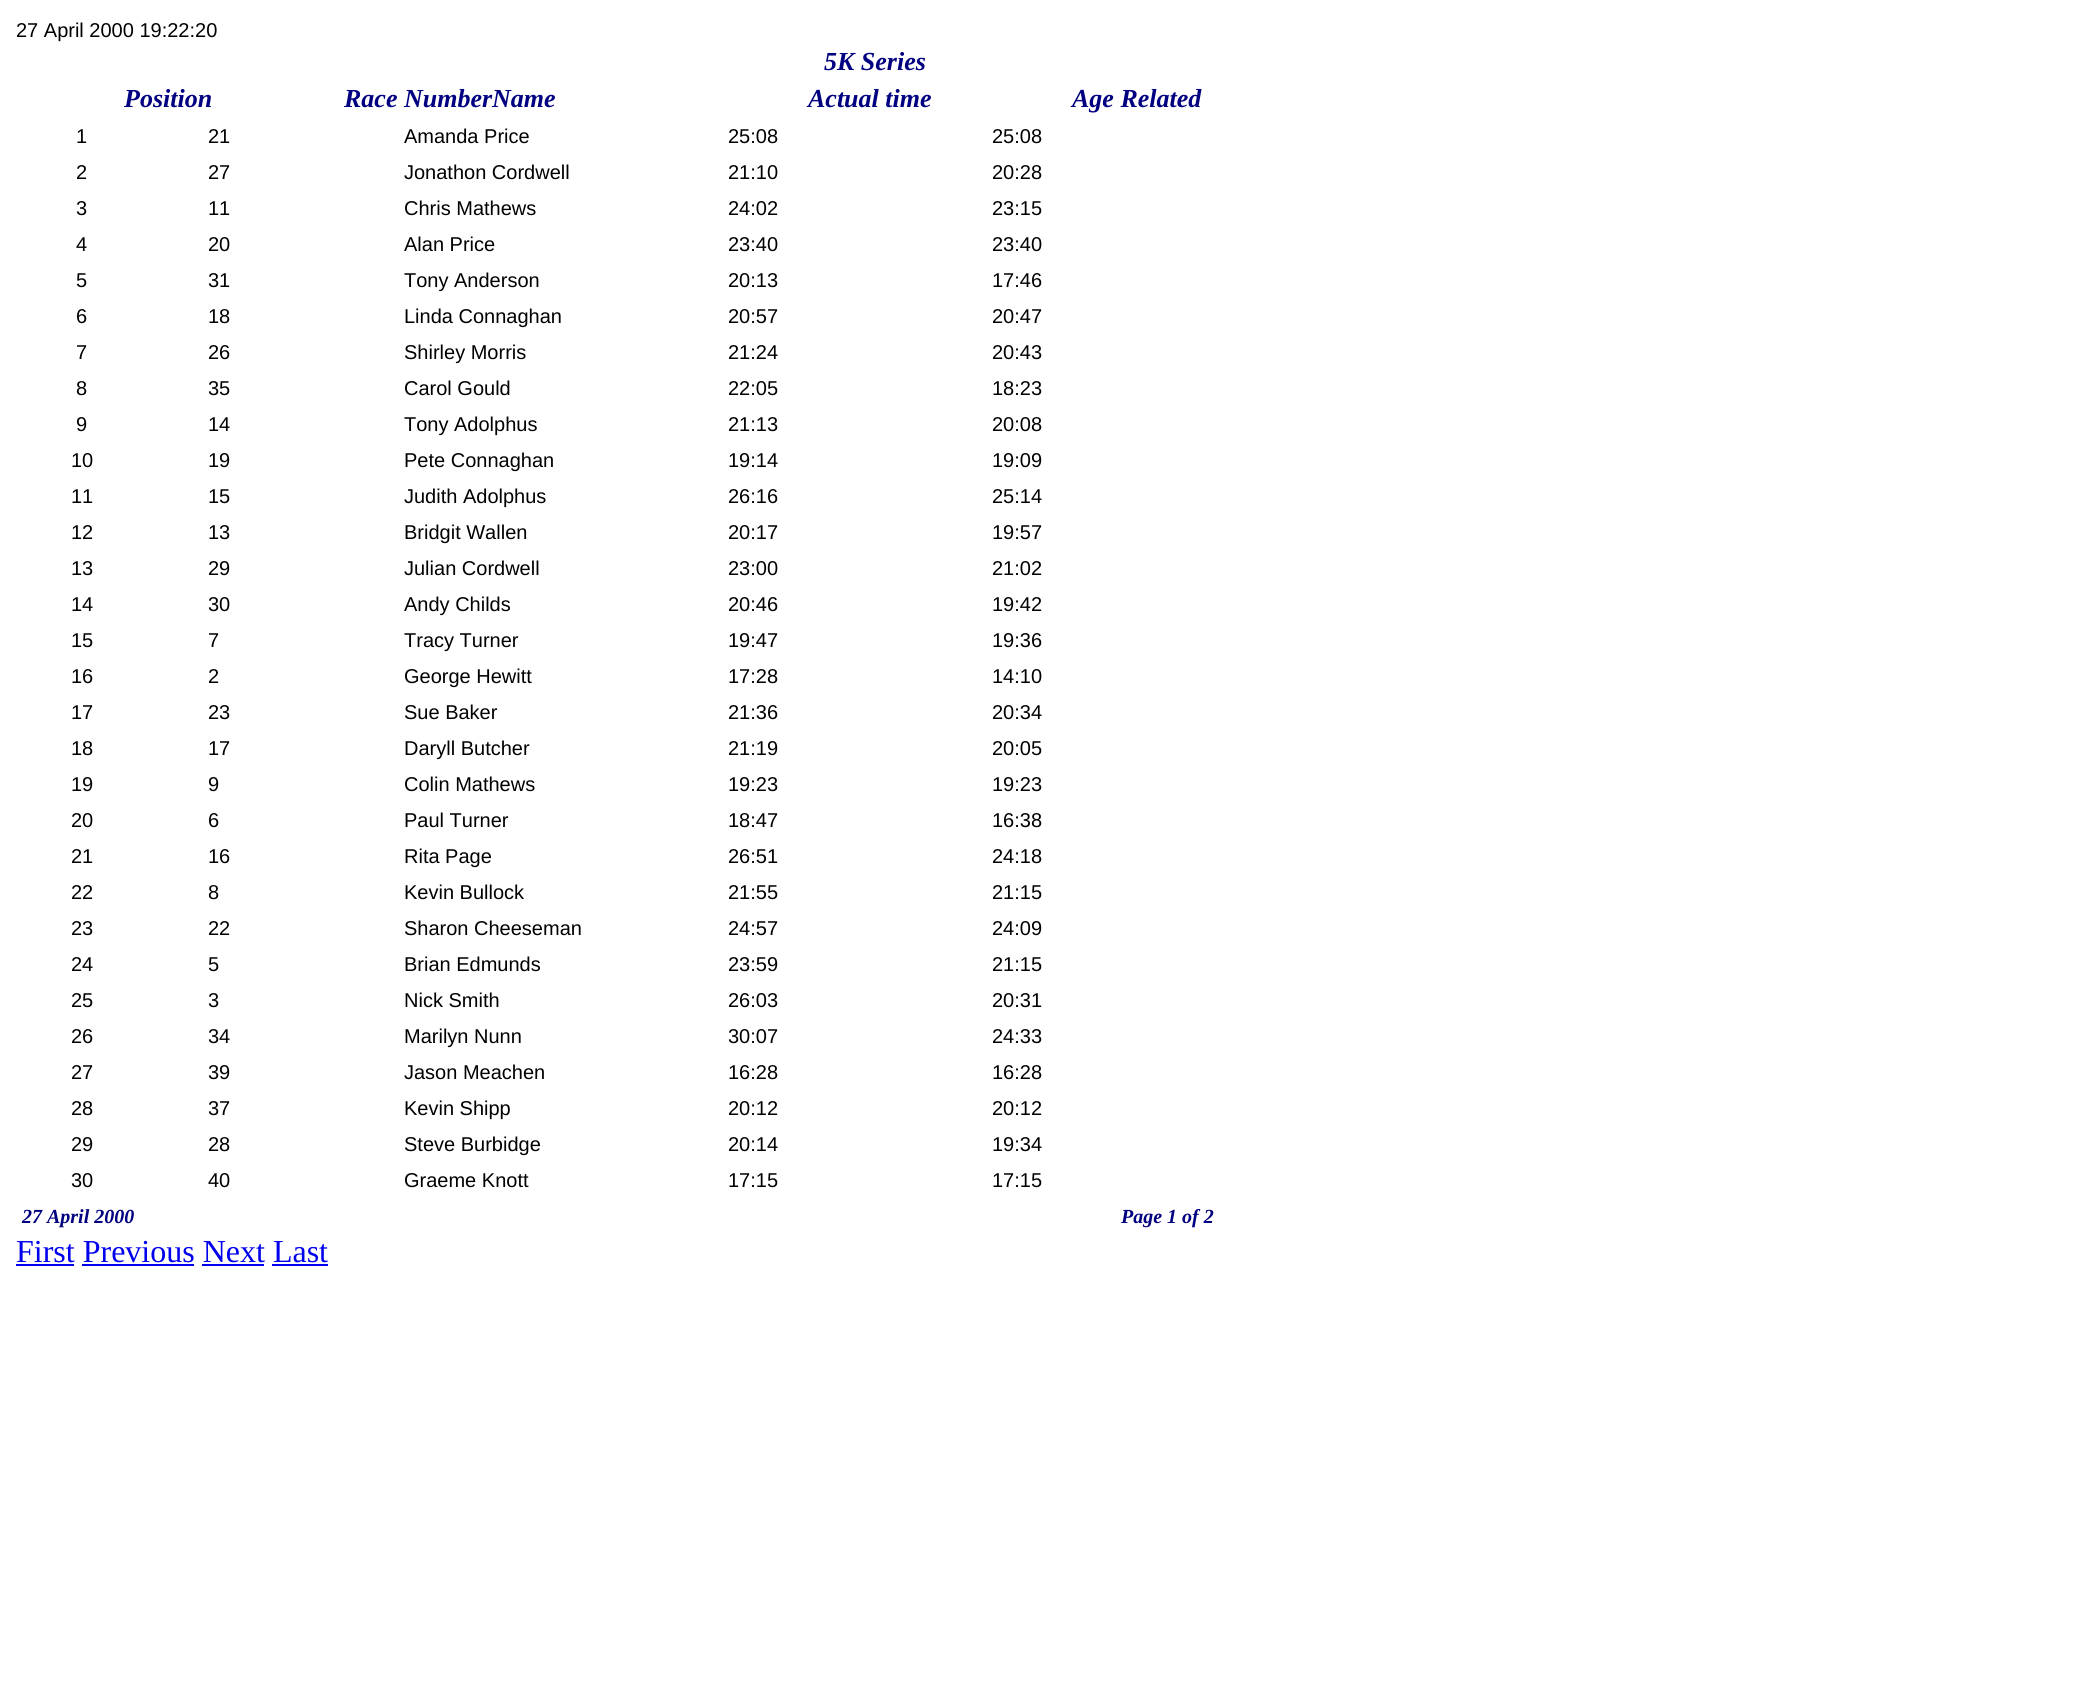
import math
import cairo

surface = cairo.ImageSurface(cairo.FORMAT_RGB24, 2079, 1704)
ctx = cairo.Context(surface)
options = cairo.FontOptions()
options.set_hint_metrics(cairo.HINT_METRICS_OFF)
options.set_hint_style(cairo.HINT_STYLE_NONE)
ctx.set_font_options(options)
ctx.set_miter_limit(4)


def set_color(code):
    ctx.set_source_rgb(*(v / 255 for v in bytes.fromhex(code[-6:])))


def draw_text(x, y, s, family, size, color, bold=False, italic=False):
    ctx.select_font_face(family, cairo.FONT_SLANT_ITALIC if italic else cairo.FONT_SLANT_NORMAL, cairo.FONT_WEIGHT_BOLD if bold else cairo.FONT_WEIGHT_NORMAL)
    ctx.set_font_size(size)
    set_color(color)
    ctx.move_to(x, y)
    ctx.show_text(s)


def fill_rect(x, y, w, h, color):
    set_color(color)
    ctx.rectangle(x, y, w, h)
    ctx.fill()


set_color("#ffffff")
ctx.paint()
draw_text(16, 37, "27 April 2000 19:22:20", "Liberation Sans", 20, "#000000")
draw_text(824, 70, "5K Series", "Liberation Serif", 26, "#000080", bold=True, italic=True)
draw_text(124, 107, "Position", "Liberation Serif", 26, "#000080", bold=True, italic=True)
draw_text(344, 107, "Race NumberName", "Liberation Serif", 26, "#000080", bold=True, italic=True)
draw_text(808, 107, "Actual time", "Liberation Serif", 26, "#000080", bold=True, italic=True)
draw_text(1072, 107, "Age Related", "Liberation Serif", 26, "#000080", bold=True, italic=True)
draw_text(76, 143, "1", "Liberation Sans", 20, "#000000")
draw_text(208, 143, "21", "Liberation Sans", 20, "#000000")
draw_text(404, 143, "Amanda Price", "Liberation Sans", 20, "#000000")
draw_text(728, 143, "25:08", "Liberation Sans", 20, "#000000")
draw_text(992, 143, "25:08", "Liberation Sans", 20, "#000000")
draw_text(76, 179, "2", "Liberation Sans", 20, "#000000")
draw_text(208, 179, "27", "Liberation Sans", 20, "#000000")
draw_text(404, 179, "Jonathon Cordwell", "Liberation Sans", 20, "#000000")
draw_text(728, 179, "21:10", "Liberation Sans", 20, "#000000")
draw_text(992, 179, "20:28", "Liberation Sans", 20, "#000000")
draw_text(76, 215, "3", "Liberation Sans", 20, "#000000")
draw_text(208, 215, "11", "Liberation Sans", 20, "#000000")
draw_text(404, 215, "Chris Mathews", "Liberation Sans", 20, "#000000")
draw_text(728, 215, "24:02", "Liberation Sans", 20, "#000000")
draw_text(992, 215, "23:15", "Liberation Sans", 20, "#000000")
draw_text(76, 251, "4", "Liberation Sans", 20, "#000000")
draw_text(208, 251, "20", "Liberation Sans", 20, "#000000")
draw_text(404, 251, "Alan Price", "Liberation Sans", 20, "#000000")
draw_text(728, 251, "23:40", "Liberation Sans", 20, "#000000")
draw_text(992, 251, "23:40", "Liberation Sans", 20, "#000000")
draw_text(76, 287, "5", "Liberation Sans", 20, "#000000")
draw_text(208, 287, "31", "Liberation Sans", 20, "#000000")
draw_text(404, 287, "Tony Anderson", "Liberation Sans", 20, "#000000")
draw_text(728, 287, "20:13", "Liberation Sans", 20, "#000000")
draw_text(992, 287, "17:46", "Liberation Sans", 20, "#000000")
draw_text(76, 323, "6", "Liberation Sans", 20, "#000000")
draw_text(208, 323, "18", "Liberation Sans", 20, "#000000")
draw_text(404, 323, "Linda Connaghan", "Liberation Sans", 20, "#000000")
draw_text(728, 323, "20:57", "Liberation Sans", 20, "#000000")
draw_text(992, 323, "20:47", "Liberation Sans", 20, "#000000")
draw_text(76, 359, "7", "Liberation Sans", 20, "#000000")
draw_text(208, 359, "26", "Liberation Sans", 20, "#000000")
draw_text(404, 359, "Shirley Morris", "Liberation Sans", 20, "#000000")
draw_text(728, 359, "21:24", "Liberation Sans", 20, "#000000")
draw_text(992, 359, "20:43", "Liberation Sans", 20, "#000000")
draw_text(76, 395, "8", "Liberation Sans", 20, "#000000")
draw_text(208, 395, "35", "Liberation Sans", 20, "#000000")
draw_text(404, 395, "Carol Gould", "Liberation Sans", 20, "#000000")
draw_text(728, 395, "22:05", "Liberation Sans", 20, "#000000")
draw_text(992, 395, "18:23", "Liberation Sans", 20, "#000000")
draw_text(76, 431, "9", "Liberation Sans", 20, "#000000")
draw_text(208, 431, "14", "Liberation Sans", 20, "#000000")
draw_text(404, 431, "Tony Adolphus", "Liberation Sans", 20, "#000000")
draw_text(728, 431, "21:13", "Liberation Sans", 20, "#000000")
draw_text(992, 431, "20:08", "Liberation Sans", 20, "#000000")
draw_text(71, 467, "10", "Liberation Sans", 20, "#000000")
draw_text(208, 467, "19", "Liberation Sans", 20, "#000000")
draw_text(404, 467, "Pete Connaghan", "Liberation Sans", 20, "#000000")
draw_text(728, 467, "19:14", "Liberation Sans", 20, "#000000")
draw_text(992, 467, "19:09", "Liberation Sans", 20, "#000000")
draw_text(71, 503, "11", "Liberation Sans", 20, "#000000")
draw_text(208, 503, "15", "Liberation Sans", 20, "#000000")
draw_text(404, 503, "Judith Adolphus", "Liberation Sans", 20, "#000000")
draw_text(728, 503, "26:16", "Liberation Sans", 20, "#000000")
draw_text(992, 503, "25:14", "Liberation Sans", 20, "#000000")
draw_text(71, 539, "12", "Liberation Sans", 20, "#000000")
draw_text(208, 539, "13", "Liberation Sans", 20, "#000000")
draw_text(404, 539, "Bridgit Wallen", "Liberation Sans", 20, "#000000")
draw_text(728, 539, "20:17", "Liberation Sans", 20, "#000000")
draw_text(992, 539, "19:57", "Liberation Sans", 20, "#000000")
draw_text(71, 575, "13", "Liberation Sans", 20, "#000000")
draw_text(208, 575, "29", "Liberation Sans", 20, "#000000")
draw_text(404, 575, "Julian Cordwell", "Liberation Sans", 20, "#000000")
draw_text(728, 575, "23:00", "Liberation Sans", 20, "#000000")
draw_text(992, 575, "21:02", "Liberation Sans", 20, "#000000")
draw_text(71, 611, "14", "Liberation Sans", 20, "#000000")
draw_text(208, 611, "30", "Liberation Sans", 20, "#000000")
draw_text(404, 611, "Andy Childs", "Liberation Sans", 20, "#000000")
draw_text(728, 611, "20:46", "Liberation Sans", 20, "#000000")
draw_text(992, 611, "19:42", "Liberation Sans", 20, "#000000")
draw_text(71, 647, "15", "Liberation Sans", 20, "#000000")
draw_text(208, 647, "7", "Liberation Sans", 20, "#000000")
draw_text(404, 647, "Tracy Turner", "Liberation Sans", 20, "#000000")
draw_text(728, 647, "19:47", "Liberation Sans", 20, "#000000")
draw_text(992, 647, "19:36", "Liberation Sans", 20, "#000000")
draw_text(71, 683, "16", "Liberation Sans", 20, "#000000")
draw_text(208, 683, "2", "Liberation Sans", 20, "#000000")
draw_text(404, 683, "George Hewitt", "Liberation Sans", 20, "#000000")
draw_text(728, 683, "17:28", "Liberation Sans", 20, "#000000")
draw_text(992, 683, "14:10", "Liberation Sans", 20, "#000000")
draw_text(71, 719, "17", "Liberation Sans", 20, "#000000")
draw_text(208, 719, "23", "Liberation Sans", 20, "#000000")
draw_text(404, 719, "Sue Baker", "Liberation Sans", 20, "#000000")
draw_text(728, 719, "21:36", "Liberation Sans", 20, "#000000")
draw_text(992, 719, "20:34", "Liberation Sans", 20, "#000000")
draw_text(71, 755, "18", "Liberation Sans", 20, "#000000")
draw_text(208, 755, "17", "Liberation Sans", 20, "#000000")
draw_text(404, 755, "Daryll Butcher", "Liberation Sans", 20, "#000000")
draw_text(728, 755, "21:19", "Liberation Sans", 20, "#000000")
draw_text(992, 755, "20:05", "Liberation Sans", 20, "#000000")
draw_text(71, 791, "19", "Liberation Sans", 20, "#000000")
draw_text(208, 791, "9", "Liberation Sans", 20, "#000000")
draw_text(404, 791, "Colin Mathews", "Liberation Sans", 20, "#000000")
draw_text(728, 791, "19:23", "Liberation Sans", 20, "#000000")
draw_text(992, 791, "19:23", "Liberation Sans", 20, "#000000")
draw_text(71, 827, "20", "Liberation Sans", 20, "#000000")
draw_text(208, 827, "6", "Liberation Sans", 20, "#000000")
draw_text(404, 827, "Paul Turner", "Liberation Sans", 20, "#000000")
draw_text(728, 827, "18:47", "Liberation Sans", 20, "#000000")
draw_text(992, 827, "16:38", "Liberation Sans", 20, "#000000")
draw_text(71, 863, "21", "Liberation Sans", 20, "#000000")
draw_text(208, 863, "16", "Liberation Sans", 20, "#000000")
draw_text(404, 863, "Rita Page", "Liberation Sans", 20, "#000000")
draw_text(728, 863, "26:51", "Liberation Sans", 20, "#000000")
draw_text(992, 863, "24:18", "Liberation Sans", 20, "#000000")
draw_text(71, 899, "22", "Liberation Sans", 20, "#000000")
draw_text(208, 899, "8", "Liberation Sans", 20, "#000000")
draw_text(404, 899, "Kevin Bullock", "Liberation Sans", 20, "#000000")
draw_text(728, 899, "21:55", "Liberation Sans", 20, "#000000")
draw_text(992, 899, "21:15", "Liberation Sans", 20, "#000000")
draw_text(71, 935, "23", "Liberation Sans", 20, "#000000")
draw_text(208, 935, "22", "Liberation Sans", 20, "#000000")
draw_text(404, 935, "Sharon Cheeseman", "Liberation Sans", 20, "#000000")
draw_text(728, 935, "24:57", "Liberation Sans", 20, "#000000")
draw_text(992, 935, "24:09", "Liberation Sans", 20, "#000000")
draw_text(71, 971, "24", "Liberation Sans", 20, "#000000")
draw_text(208, 971, "5", "Liberation Sans", 20, "#000000")
draw_text(404, 971, "Brian Edmunds", "Liberation Sans", 20, "#000000")
draw_text(728, 971, "23:59", "Liberation Sans", 20, "#000000")
draw_text(992, 971, "21:15", "Liberation Sans", 20, "#000000")
draw_text(71, 1007, "25", "Liberation Sans", 20, "#000000")
draw_text(208, 1007, "3", "Liberation Sans", 20, "#000000")
draw_text(404, 1007, "Nick Smith", "Liberation Sans", 20, "#000000")
draw_text(728, 1007, "26:03", "Liberation Sans", 20, "#000000")
draw_text(992, 1007, "20:31", "Liberation Sans", 20, "#000000")
draw_text(71, 1043, "26", "Liberation Sans", 20, "#000000")
draw_text(208, 1043, "34", "Liberation Sans", 20, "#000000")
draw_text(404, 1043, "Marilyn Nunn", "Liberation Sans", 20, "#000000")
draw_text(728, 1043, "30:07", "Liberation Sans", 20, "#000000")
draw_text(992, 1043, "24:33", "Liberation Sans", 20, "#000000")
draw_text(71, 1079, "27", "Liberation Sans", 20, "#000000")
draw_text(208, 1079, "39", "Liberation Sans", 20, "#000000")
draw_text(404, 1079, "Jason Meachen", "Liberation Sans", 20, "#000000")
draw_text(728, 1079, "16:28", "Liberation Sans", 20, "#000000")
draw_text(992, 1079, "16:28", "Liberation Sans", 20, "#000000")
draw_text(71, 1115, "28", "Liberation Sans", 20, "#000000")
draw_text(208, 1115, "37", "Liberation Sans", 20, "#000000")
draw_text(404, 1115, "Kevin Shipp", "Liberation Sans", 20, "#000000")
draw_text(728, 1115, "20:12", "Liberation Sans", 20, "#000000")
draw_text(992, 1115, "20:12", "Liberation Sans", 20, "#000000")
draw_text(71, 1151, "29", "Liberation Sans", 20, "#000000")
draw_text(208, 1151, "28", "Liberation Sans", 20, "#000000")
draw_text(404, 1151, "Steve Burbidge", "Liberation Sans", 20, "#000000")
draw_text(728, 1151, "20:14", "Liberation Sans", 20, "#000000")
draw_text(992, 1151, "19:34", "Liberation Sans", 20, "#000000")
draw_text(71, 1187, "30", "Liberation Sans", 20, "#000000")
draw_text(208, 1187, "40", "Liberation Sans", 20, "#000000")
draw_text(404, 1187, "Graeme Knott", "Liberation Sans", 20, "#000000")
draw_text(728, 1187, "17:15", "Liberation Sans", 20, "#000000")
draw_text(992, 1187, "17:15", "Liberation Sans", 20, "#000000")
draw_text(22, 1223, "27 April 2000", "Liberation Serif", 20, "#000080", bold=True, italic=True)
draw_text(1121, 1223, "Page 1 of 2", "Liberation Serif", 20, "#000080", bold=True, italic=True)
draw_text(16, 1262, "First Previous Next Last", "Liberation Serif", 32, "#0000ee")
fill_rect(16, 1264, 58, 2, "#0000ee")
fill_rect(82, 1264, 112, 2, "#0000ee")
fill_rect(202, 1264, 62, 2, "#0000ee")
fill_rect(272, 1264, 56, 2, "#0000ee")
surface.write_to_png("output.png")
